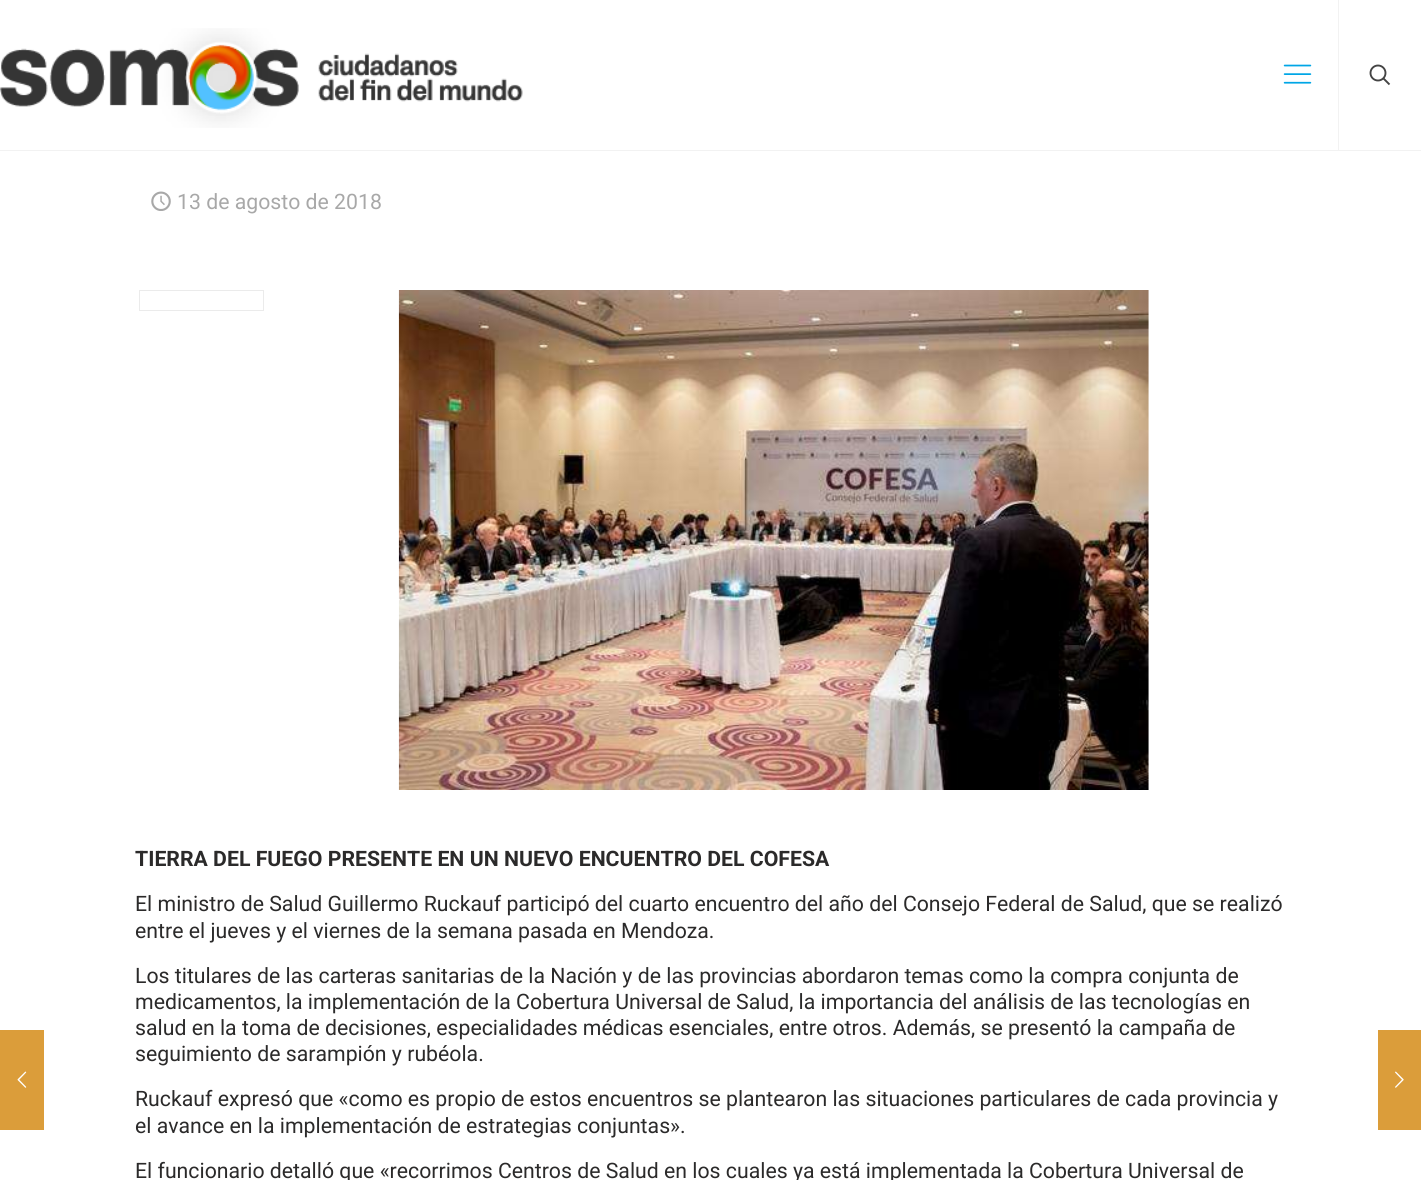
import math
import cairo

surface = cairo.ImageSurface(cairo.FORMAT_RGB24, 1421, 1180)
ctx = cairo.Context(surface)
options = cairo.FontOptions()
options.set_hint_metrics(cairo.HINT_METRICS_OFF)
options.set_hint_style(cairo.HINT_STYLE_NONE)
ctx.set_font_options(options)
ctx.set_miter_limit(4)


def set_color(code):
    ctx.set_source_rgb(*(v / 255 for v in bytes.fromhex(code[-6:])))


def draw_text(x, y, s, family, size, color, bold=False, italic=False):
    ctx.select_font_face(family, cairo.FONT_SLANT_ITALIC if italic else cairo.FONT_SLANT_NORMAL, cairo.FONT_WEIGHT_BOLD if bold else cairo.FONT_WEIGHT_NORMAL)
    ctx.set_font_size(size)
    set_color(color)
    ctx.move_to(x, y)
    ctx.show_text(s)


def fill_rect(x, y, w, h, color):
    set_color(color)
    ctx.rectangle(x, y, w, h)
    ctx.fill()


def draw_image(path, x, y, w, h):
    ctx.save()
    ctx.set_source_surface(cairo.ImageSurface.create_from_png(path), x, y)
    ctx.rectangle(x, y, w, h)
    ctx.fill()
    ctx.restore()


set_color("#ffffff")
ctx.paint()
fill_rect(0, 1030, 44, 100, "#db9d3a")
draw_image("assets/img1.png", 17, 1071, 10, 17)
fill_rect(0, 150, 1421, 1, "#f2f2f2")
draw_image("assets/img2.png", 0, 28, 523, 100)
draw_image("assets/img3.png", 1283, 64, 29, 20)
fill_rect(1338, 0, 1, 150, "#f2f2f2")
ctx.arc(1378, 73, 7.5, 0, 2 * math.pi)
set_color("#444444")
ctx.set_line_width(1.9)
ctx.stroke()
ctx.new_path()
ctx.move_to(1383, 78)
ctx.line_to(1389.5, 84.5)
ctx.stroke()
draw_image("assets/img4.png", 151, 191, 20, 20)
draw_text(177, 209, "13 de agosto de 2018", "Roboto", 21.25, "#a8a8a8")
ctx.rectangle(139.5, 290.5, 124, 20)
set_color("#ebebeb")
ctx.set_line_width(1)
ctx.stroke()
draw_image("assets/img5.png", 398, 290, 751, 500)
draw_text(135, 866, "TIERRA DEL FUEGO PRESENTE EN UN NUEVO ENCUENTRO DEL COFESA", "Roboto", 21.25, "#2b2a2a", bold=True)
draw_text(135, 911, "El ministro de Salud Guillermo Ruckauf participó del cuarto encuentro del año del Consejo Federal de Salud, que se realizó", "Roboto", 21.25, "#2b2a2a")
draw_text(135, 938, "entre el jueves y el viernes de la semana pasada en Mendoza.", "Roboto", 21.25, "#2b2a2a")
draw_text(135, 983, "Los titulares de las carteras sanitarias de la Nación y de las provincias abordaron temas como la compra conjunta de", "Roboto", 21.25, "#2b2a2a")
draw_text(135, 1009, "medicamentos, la implementación de la Cobertura Universal de Salud, la importancia del análisis de las tecnologías en", "Roboto", 21.25, "#2b2a2a")
draw_text(135, 1035, "salud en la toma de decisiones, especialidades médicas esenciales, entre otros. Además, se presentó la campaña de", "Roboto", 21.25, "#2b2a2a")
draw_text(135, 1061, "seguimiento de sarampión y rubéola.", "Roboto", 21.25, "#2b2a2a")
draw_text(135, 1106, "Ruckauf expresó que «como es propio de estos encuentros se plantearon las situaciones particulares de cada provincia y", "Roboto", 21.25, "#2b2a2a")
draw_text(135, 1133, "el avance en la implementación de estrategias conjuntas».", "Roboto", 21.25, "#2b2a2a")
draw_text(135, 1178, "El funcionario detalló que «recorrimos Centros de Salud en los cuales ya está implementada la Cobertura Universal de", "Roboto", 21.25, "#2b2a2a")
fill_rect(1378, 1030, 43, 100, "#db9d3a")
draw_image("assets/img6.png", 1395, 1071, 9, 17)
surface.write_to_png("output.png")
